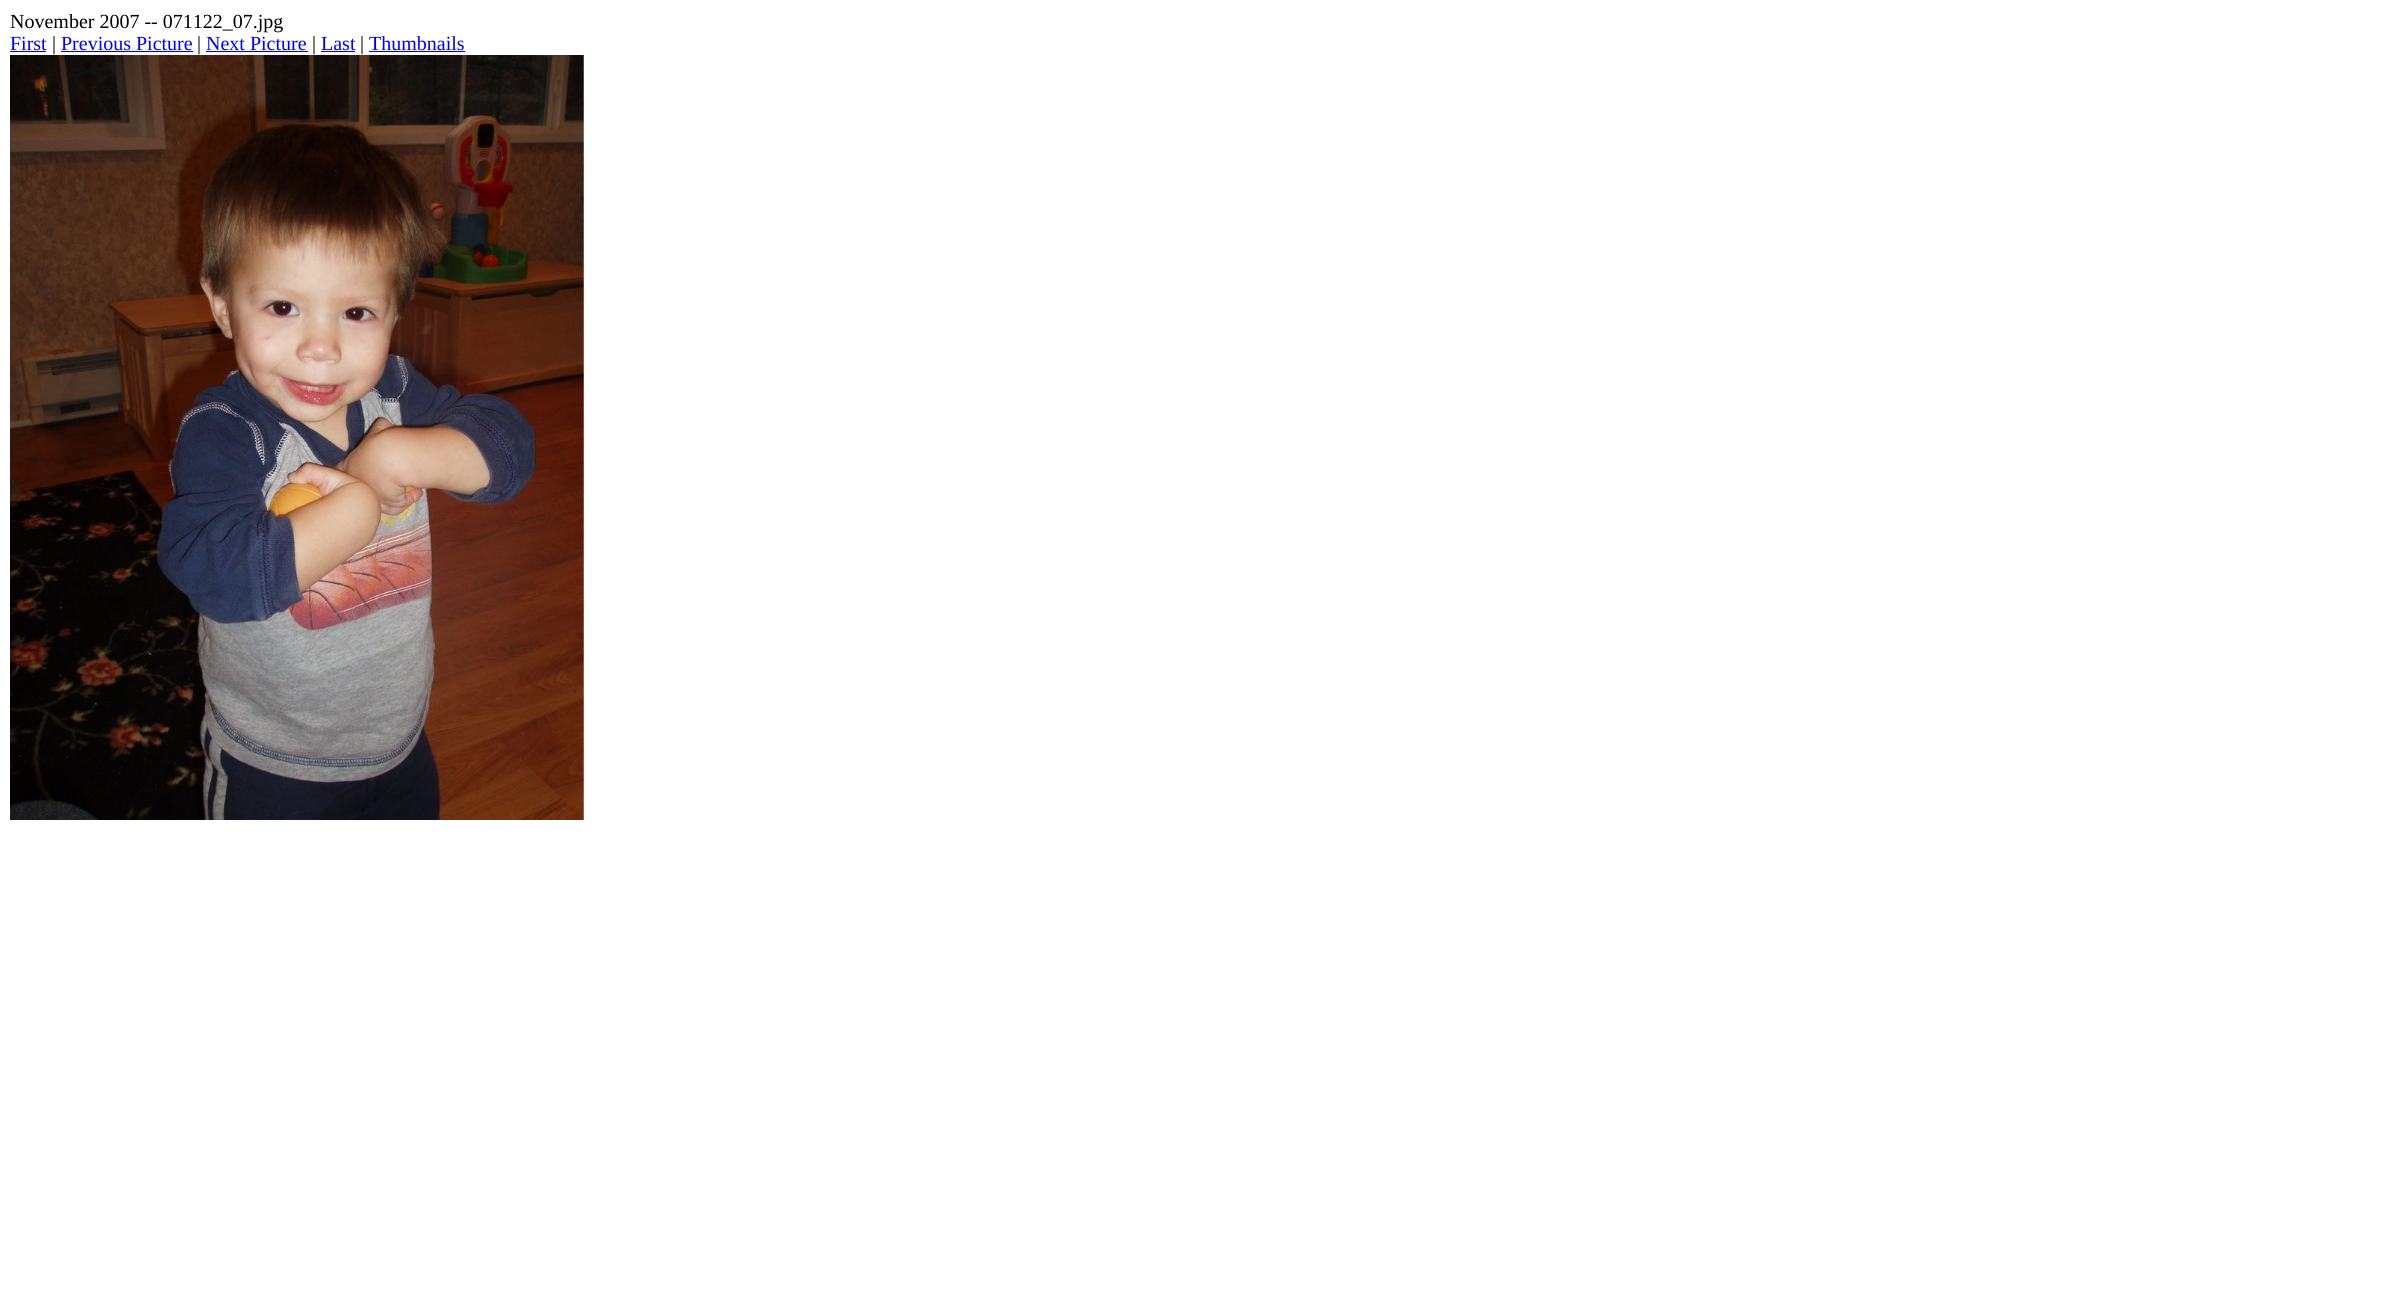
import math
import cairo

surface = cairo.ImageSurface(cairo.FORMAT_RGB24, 2403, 1292)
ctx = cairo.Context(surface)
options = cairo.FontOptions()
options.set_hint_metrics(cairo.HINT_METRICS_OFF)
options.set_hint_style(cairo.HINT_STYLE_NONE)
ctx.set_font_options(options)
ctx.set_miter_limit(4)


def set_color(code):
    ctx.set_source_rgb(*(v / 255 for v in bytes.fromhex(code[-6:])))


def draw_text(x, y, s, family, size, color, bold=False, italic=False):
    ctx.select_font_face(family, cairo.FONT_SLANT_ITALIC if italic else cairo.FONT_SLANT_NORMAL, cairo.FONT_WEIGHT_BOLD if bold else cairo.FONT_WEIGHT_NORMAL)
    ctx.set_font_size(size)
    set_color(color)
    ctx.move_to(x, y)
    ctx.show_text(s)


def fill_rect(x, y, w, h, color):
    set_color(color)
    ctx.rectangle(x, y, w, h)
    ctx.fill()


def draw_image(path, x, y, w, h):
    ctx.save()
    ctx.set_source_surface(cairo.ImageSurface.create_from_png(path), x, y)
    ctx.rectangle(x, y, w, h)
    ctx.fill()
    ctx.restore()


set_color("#ffffff")
ctx.paint()
draw_text(10, 28, "November 2007 -- 071122_07.jpg", "Liberation Serif", 20, "#000000")
draw_text(10, 50, "First", "Liberation Serif", 20, "#0000ee")
fill_rect(10, 51, 36, 1, "#0000ee")
draw_text(52, 50, "|", "Liberation Serif", 20, "#000000")
draw_text(61, 50, "Previous Picture", "Liberation Serif", 20, "#0000ee")
fill_rect(61, 51, 132, 1, "#0000ee")
draw_text(197, 50, "|", "Liberation Serif", 20, "#000000")
draw_text(206, 50, "Next Picture", "Liberation Serif", 20, "#0000ee")
fill_rect(206, 51, 102, 1, "#0000ee")
draw_text(312, 50, "|", "Liberation Serif", 20, "#000000")
draw_text(321, 50, "Last", "Liberation Serif", 20, "#0000ee")
fill_rect(321, 51, 34, 1, "#0000ee")
draw_text(360, 50, "|", "Liberation Serif", 20, "#000000")
draw_text(369, 50, "Thumbnails", "Liberation Serif", 20, "#0000ee")
fill_rect(369, 51, 96, 1, "#0000ee")
draw_image("assets/img1.png", 10, 55, 574, 765)
surface.write_to_png("output.png")
